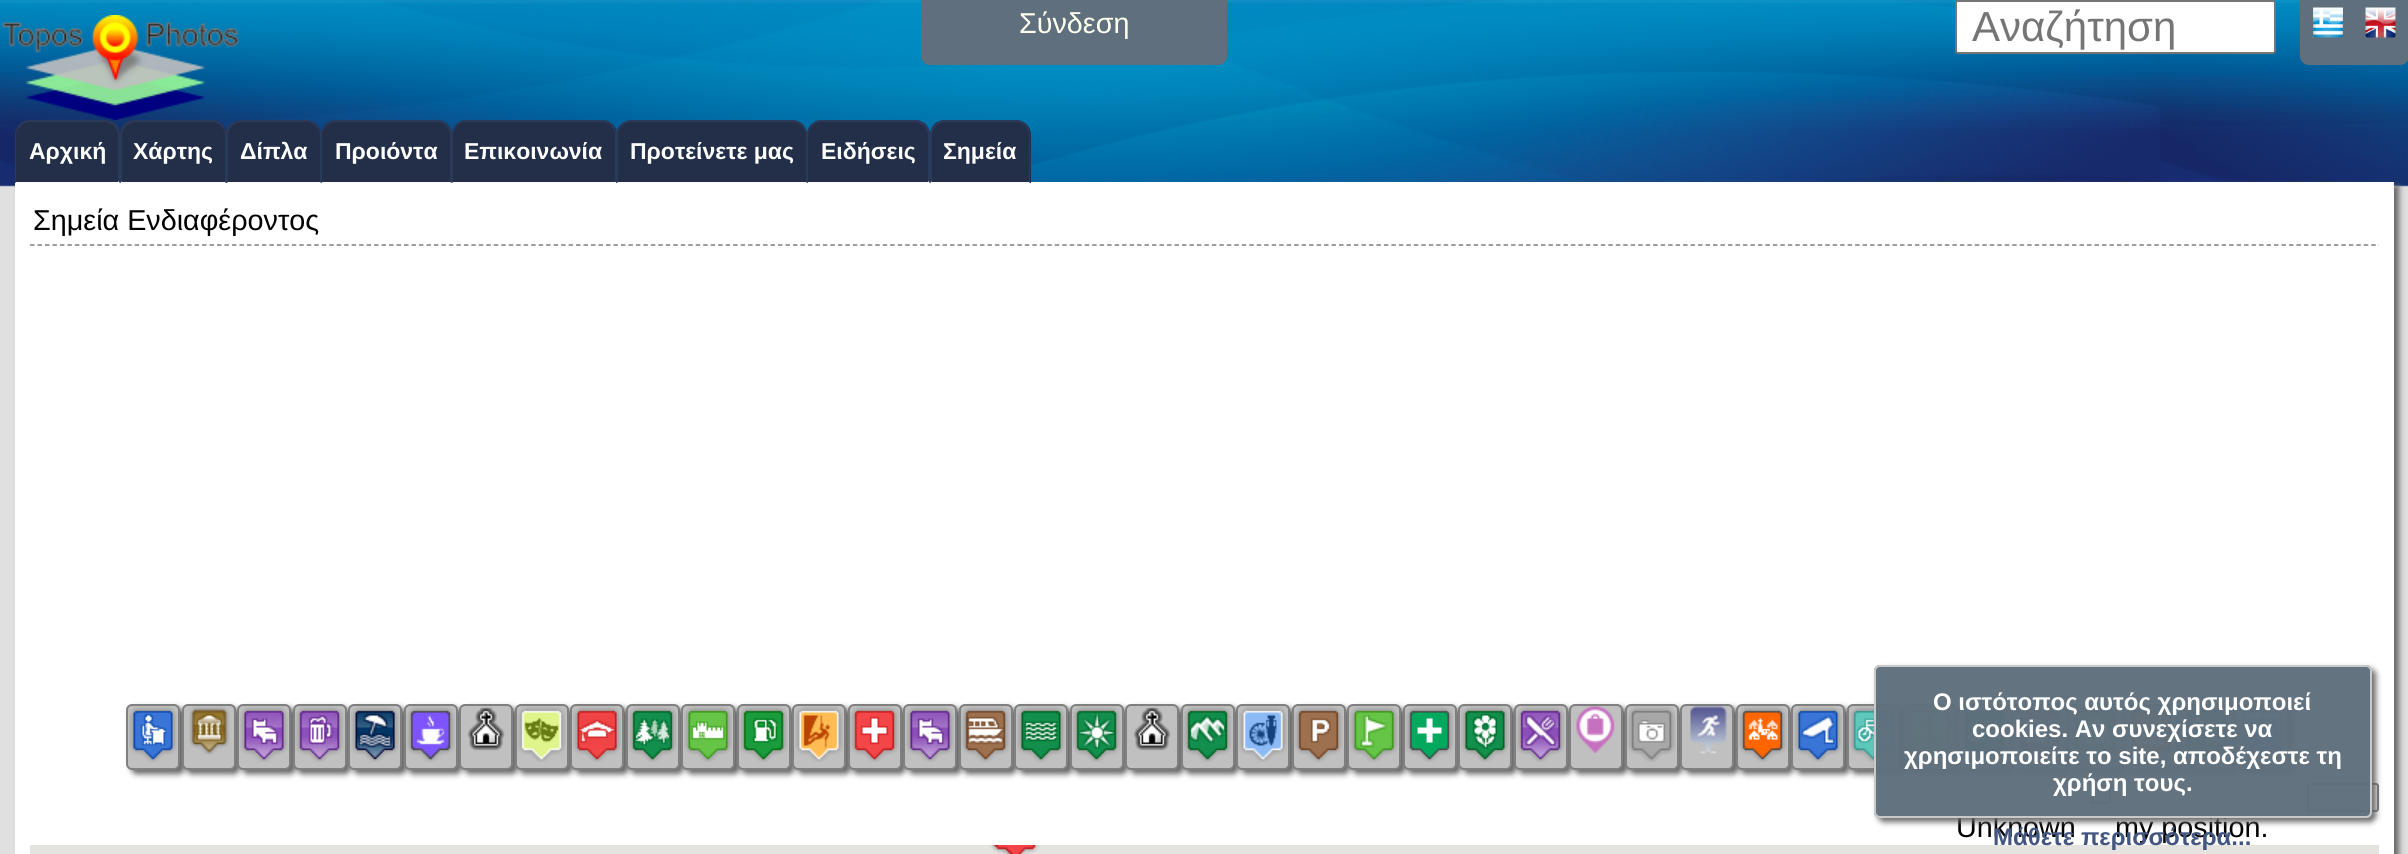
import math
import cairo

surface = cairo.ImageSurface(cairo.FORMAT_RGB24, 2408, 854)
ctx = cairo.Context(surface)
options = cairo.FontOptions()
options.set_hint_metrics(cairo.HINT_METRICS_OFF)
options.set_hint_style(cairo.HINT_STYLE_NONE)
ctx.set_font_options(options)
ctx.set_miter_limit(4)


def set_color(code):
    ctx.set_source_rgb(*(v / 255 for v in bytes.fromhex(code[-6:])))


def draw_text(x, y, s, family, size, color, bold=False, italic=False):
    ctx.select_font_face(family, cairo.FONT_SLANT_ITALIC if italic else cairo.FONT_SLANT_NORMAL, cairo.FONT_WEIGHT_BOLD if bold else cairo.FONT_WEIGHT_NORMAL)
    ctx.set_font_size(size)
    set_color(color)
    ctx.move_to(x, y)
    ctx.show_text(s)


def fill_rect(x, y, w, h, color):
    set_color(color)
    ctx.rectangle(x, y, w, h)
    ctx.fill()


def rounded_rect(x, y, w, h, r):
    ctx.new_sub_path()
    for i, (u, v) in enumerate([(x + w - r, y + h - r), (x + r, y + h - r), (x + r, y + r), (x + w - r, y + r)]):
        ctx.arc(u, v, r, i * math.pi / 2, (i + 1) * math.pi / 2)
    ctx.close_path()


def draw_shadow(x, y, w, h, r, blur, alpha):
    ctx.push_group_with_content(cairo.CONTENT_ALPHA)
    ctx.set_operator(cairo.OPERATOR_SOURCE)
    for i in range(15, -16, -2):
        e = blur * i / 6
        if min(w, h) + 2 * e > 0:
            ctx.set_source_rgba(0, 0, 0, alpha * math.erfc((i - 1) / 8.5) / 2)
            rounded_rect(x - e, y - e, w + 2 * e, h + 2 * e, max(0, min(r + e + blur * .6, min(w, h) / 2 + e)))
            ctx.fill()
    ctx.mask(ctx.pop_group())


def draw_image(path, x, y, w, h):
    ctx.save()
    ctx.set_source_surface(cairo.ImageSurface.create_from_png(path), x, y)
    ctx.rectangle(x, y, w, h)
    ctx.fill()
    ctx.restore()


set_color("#e0e0e0")
ctx.paint()
draw_image("assets/img1.png", 0, 0, 2408, 187)
draw_image("assets/img2.png", 1, 15, 238, 105)
set_color("#5f6f7d")
ctx.new_path()
ctx.move_to(921, 0)
ctx.line_to(1227, 0)
ctx.line_to(1227, 56)
ctx.curve_to(1227, 61, 1223, 65, 1218, 65)
ctx.line_to(930, 65)
ctx.curve_to(925, 65, 921, 61, 921, 56)
ctx.close_path()
ctx.fill()
ctx.set_fill_rule(cairo.FILL_RULE_EVEN_ODD)
ctx.new_path()
ctx.move_to(921, 0)
ctx.line_to(1227, 0)
ctx.line_to(1227, 56)
ctx.curve_to(1227, 60, 1223, 64, 1218, 64)
ctx.line_to(930, 64)
ctx.curve_to(925, 64, 921, 60, 921, 56)
ctx.close_path()
ctx.move_to(922, 0)
ctx.line_to(1226, 0)
ctx.line_to(1226, 56)
ctx.curve_to(1226, 60, 1222, 63, 1218, 63)
ctx.line_to(930, 63)
ctx.curve_to(926, 63, 922, 60, 922, 56)
ctx.close_path()
ctx.fill()
draw_text(1019, 33, "Σύνδεση", "Liberation Sans", 28.75, "#ffffee")
set_color("#ffffff")
rounded_rect(1956, 1, 319, 52, 2)
ctx.fill_preserve()
set_color("#767676")
ctx.stroke()
draw_text(1972, 41, "Αναζήτηση", "Liberation Sans", 42, "#757575")
set_color("#5f6f7d")
ctx.new_path()
ctx.move_to(2300, 0)
ctx.line_to(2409, 0)
ctx.line_to(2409, 56)
ctx.curve_to(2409, 61, 2405, 65, 2400, 65)
ctx.line_to(2309, 65)
ctx.curve_to(2304, 65, 2300, 61, 2300, 56)
ctx.close_path()
ctx.fill()
ctx.new_path()
ctx.move_to(2300, 0)
ctx.line_to(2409, 0)
ctx.line_to(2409, 56)
ctx.curve_to(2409, 60, 2405, 64, 2400, 64)
ctx.line_to(2308, 64)
ctx.curve_to(2304, 64, 2300, 60, 2300, 56)
ctx.close_path()
ctx.move_to(2301, 0)
ctx.line_to(2408, 0)
ctx.line_to(2408, 56)
ctx.curve_to(2408, 60, 2404, 63, 2400, 63)
ctx.line_to(2308, 63)
ctx.curve_to(2304, 63, 2301, 60, 2301, 56)
ctx.close_path()
ctx.fill()
draw_image("assets/img3.png", 2313, 7, 30, 31)
draw_image("assets/img4.png", 2365, 7, 31, 31)
set_color("#666666")
draw_shadow(20, 186, 2379, 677, 0, 3, 1)
fill_rect(15, 182, 2379, 672, "#ffffff")
set_color("#232f48")
ctx.new_path()
ctx.move_to(30, 120)
ctx.line_to(105, 120)
ctx.curve_to(113.5, 120, 120, 126.5, 120, 135)
ctx.line_to(120, 183)
ctx.line_to(15, 183)
ctx.line_to(15, 135)
ctx.curve_to(15, 126.5, 21.5, 120, 30, 120)
ctx.close_path()
ctx.fill()
set_color("#2b3a5a")
ctx.set_fill_rule(cairo.FILL_RULE_WINDING)
ctx.new_path()
ctx.move_to(30, 120)
ctx.curve_to(26, 120, 22, 122, 20, 124)
ctx.line_to(21, 126)
ctx.curve_to(23, 123, 27, 122, 30, 122)
ctx.line_to(105, 122)
ctx.curve_to(108, 122, 112, 124, 114, 126)
ctx.line_to(116, 124)
ctx.curve_to(113, 122, 109, 120, 105, 120)
ctx.close_path()
ctx.fill()
ctx.new_path()
ctx.move_to(120, 183)
ctx.line_to(120, 135)
ctx.curve_to(120, 131, 118, 127, 116, 124)
ctx.line_to(114, 126)
ctx.curve_to(116, 128, 118, 132, 118, 135)
ctx.line_to(118, 181)
ctx.close_path()
ctx.fill()
set_color("#ffffff")
ctx.new_path()
ctx.move_to(120, 183)
ctx.line_to(118, 181)
ctx.line_to(118, 182)
ctx.line_to(16, 182)
ctx.line_to(15, 183)
ctx.close_path()
ctx.fill()
set_color("#2b3a5a")
ctx.new_path()
ctx.move_to(15, 183)
ctx.line_to(16, 182)
ctx.line_to(16, 135)
ctx.curve_to(16, 131, 18, 128, 21, 126)
ctx.line_to(20, 124)
ctx.curve_to(17, 127, 15, 131, 15, 135)
ctx.close_path()
ctx.fill()
draw_text(29, 159, "Αρχική", "Liberation Sans", 23, "#ffffff", bold=True)
set_color("#232f48")
ctx.new_path()
ctx.move_to(135, 120)
ctx.line_to(212, 120)
ctx.curve_to(220.5, 120, 227, 126.5, 227, 135)
ctx.line_to(227, 183)
ctx.line_to(120, 183)
ctx.line_to(120, 135)
ctx.curve_to(120, 126.5, 126.5, 120, 135, 120)
ctx.close_path()
ctx.fill()
set_color("#2b3a5a")
ctx.new_path()
ctx.move_to(135, 120)
ctx.curve_to(131, 120, 127, 122, 124, 124)
ctx.line_to(126, 126)
ctx.curve_to(128, 124, 132, 122, 135, 122)
ctx.line_to(212, 122)
ctx.curve_to(215, 122, 219, 123, 221, 126)
ctx.line_to(222, 124)
ctx.curve_to(220, 122, 216, 120, 212, 120)
ctx.close_path()
ctx.fill()
ctx.new_path()
ctx.move_to(222, 124)
ctx.curve_to(224, 127, 226, 131, 226, 135)
ctx.line_to(226, 182)
ctx.line_to(225, 182)
ctx.line_to(225, 135)
ctx.curve_to(225, 131, 223, 128, 221, 126)
ctx.close_path()
ctx.fill()
set_color("#ffffff")
ctx.new_path()
ctx.move_to(226, 183)
ctx.line_to(225, 182)
ctx.line_to(122, 182)
ctx.line_to(122, 181)
ctx.line_to(120, 183)
ctx.close_path()
ctx.fill()
set_color("#2b3a5a")
ctx.new_path()
ctx.move_to(120, 183)
ctx.line_to(122, 181)
ctx.line_to(122, 135)
ctx.curve_to(122, 132, 124, 128, 126, 126)
ctx.line_to(124, 124)
ctx.curve_to(122, 127, 120, 131, 120, 135)
ctx.close_path()
ctx.fill()
draw_text(133, 159, "Χάρτης", "Liberation Sans", 23, "#ffffff", bold=True)
set_color("#232f48")
ctx.new_path()
ctx.move_to(242, 120)
ctx.line_to(306, 120)
ctx.curve_to(314.5, 120, 321, 126.5, 321, 135)
ctx.line_to(321, 183)
ctx.line_to(227, 183)
ctx.line_to(227, 135)
ctx.curve_to(227, 126.5, 233.5, 120, 242, 120)
ctx.close_path()
ctx.fill()
set_color("#2b3a5a")
ctx.new_path()
ctx.move_to(242, 120)
ctx.curve_to(238, 120, 234, 122, 231, 124)
ctx.line_to(232, 126)
ctx.curve_to(235, 123, 238, 122, 242, 122)
ctx.line_to(306, 122)
ctx.curve_to(309, 122, 313, 123, 315, 126)
ctx.line_to(316, 124)
ctx.curve_to(314, 122, 310, 120, 306, 120)
ctx.close_path()
ctx.fill()
ctx.new_path()
ctx.move_to(321, 183)
ctx.line_to(321, 135)
ctx.curve_to(321, 131, 319, 127, 316, 124)
ctx.line_to(315, 126)
ctx.curve_to(318, 128, 320, 131, 320, 135)
ctx.line_to(320, 182)
ctx.close_path()
ctx.fill()
set_color("#ffffff")
ctx.new_path()
ctx.move_to(321, 183)
ctx.line_to(320, 182)
ctx.line_to(228, 182)
ctx.line_to(226, 183)
ctx.close_path()
ctx.fill()
set_color("#2b3a5a")
ctx.new_path()
ctx.move_to(226, 183)
ctx.line_to(226, 131)
ctx.curve_to(227, 129, 229, 126, 231, 124)
ctx.line_to(232, 126)
ctx.curve_to(230, 128, 228, 131, 228, 135)
ctx.line_to(228, 182)
ctx.close_path()
ctx.fill()
draw_text(240, 159, "Δίπλα", "Liberation Sans", 23, "#ffffff", bold=True)
set_color("#232f48")
ctx.new_path()
ctx.move_to(336, 120)
ctx.line_to(437, 120)
ctx.curve_to(445.5, 120, 452, 126.5, 452, 135)
ctx.line_to(452, 183)
ctx.line_to(321, 183)
ctx.line_to(321, 135)
ctx.curve_to(321, 126.5, 327.5, 120, 336, 120)
ctx.close_path()
ctx.fill()
set_color("#2b3a5a")
ctx.new_path()
ctx.move_to(336, 120)
ctx.curve_to(332, 120, 328, 122, 326, 124)
ctx.line_to(327, 126)
ctx.curve_to(329, 123, 333, 122, 336, 122)
ctx.line_to(436, 122)
ctx.curve_to(440, 122, 443, 123, 446, 126)
ctx.line_to(447, 124)
ctx.curve_to(444, 122, 440, 120, 436, 120)
ctx.close_path()
ctx.fill()
ctx.new_path()
ctx.move_to(452, 131)
ctx.line_to(452, 183)
ctx.line_to(450, 182)
ctx.line_to(450, 135)
ctx.curve_to(450, 131, 448, 128, 446, 126)
ctx.line_to(447, 124)
ctx.curve_to(449, 126, 451, 129, 452, 131)
ctx.close_path()
ctx.fill()
set_color("#ffffff")
ctx.new_path()
ctx.move_to(452, 183)
ctx.line_to(450, 182)
ctx.line_to(322, 182)
ctx.line_to(321, 183)
ctx.close_path()
ctx.fill()
set_color("#2b3a5a")
ctx.new_path()
ctx.move_to(321, 183)
ctx.line_to(322, 182)
ctx.line_to(322, 135)
ctx.curve_to(322, 131, 324, 128, 327, 126)
ctx.line_to(326, 124)
ctx.curve_to(323, 127, 321, 131, 321, 135)
ctx.close_path()
ctx.fill()
draw_text(335, 159, "Προιόντα", "Liberation Sans", 23, "#ffffff", bold=True)
set_color("#232f48")
ctx.new_path()
ctx.move_to(467, 120)
ctx.line_to(602, 120)
ctx.curve_to(610.5, 120, 617, 126.5, 617, 135)
ctx.line_to(617, 183)
ctx.line_to(452, 183)
ctx.line_to(452, 135)
ctx.curve_to(452, 126.5, 458.5, 120, 467, 120)
ctx.close_path()
ctx.fill()
set_color("#2b3a5a")
ctx.new_path()
ctx.move_to(466, 120)
ctx.curve_to(462, 120, 458, 122, 456, 124)
ctx.line_to(457, 126)
ctx.curve_to(459, 123, 463, 122, 466, 122)
ctx.line_to(602, 122)
ctx.curve_to(605, 122, 609, 123, 611, 126)
ctx.line_to(612, 124)
ctx.curve_to(610, 122, 606, 120, 602, 120)
ctx.close_path()
ctx.fill()
ctx.new_path()
ctx.move_to(612, 124)
ctx.curve_to(614, 127, 616, 131, 616, 135)
ctx.line_to(616, 182)
ctx.line_to(615, 182)
ctx.line_to(615, 135)
ctx.curve_to(615, 131, 613, 128, 611, 126)
ctx.close_path()
ctx.fill()
set_color("#ffffff")
ctx.new_path()
ctx.move_to(452, 183)
ctx.line_to(616, 183)
ctx.line_to(616, 182)
ctx.line_to(615, 182)
ctx.line_to(453, 182)
ctx.close_path()
ctx.fill()
set_color("#2b3a5a")
ctx.new_path()
ctx.move_to(456, 124)
ctx.curve_to(454, 127, 452, 131, 452, 135)
ctx.line_to(452, 182)
ctx.line_to(453, 182)
ctx.line_to(453, 135)
ctx.curve_to(453, 131, 455, 128, 457, 126)
ctx.close_path()
ctx.fill()
draw_text(464, 159, "Επικοινωνία", "Liberation Sans", 23, "#ffffff", bold=True)
set_color("#232f48")
ctx.new_path()
ctx.move_to(632, 120)
ctx.line_to(792, 120)
ctx.curve_to(800.5, 120, 807, 126.5, 807, 135)
ctx.line_to(807, 183)
ctx.line_to(617, 183)
ctx.line_to(617, 135)
ctx.curve_to(617, 126.5, 623.5, 120, 632, 120)
ctx.close_path()
ctx.fill()
set_color("#2b3a5a")
ctx.new_path()
ctx.move_to(632, 120)
ctx.curve_to(628, 120, 624, 122, 621, 124)
ctx.line_to(622, 126)
ctx.curve_to(625, 123, 628, 122, 632, 122)
ctx.line_to(792, 122)
ctx.curve_to(795, 122, 799, 123, 801, 126)
ctx.line_to(802, 124)
ctx.curve_to(800, 122, 796, 120, 792, 120)
ctx.close_path()
ctx.fill()
ctx.new_path()
ctx.move_to(807, 183)
ctx.line_to(807, 135)
ctx.curve_to(807, 131, 805, 127, 802, 124)
ctx.line_to(801, 126)
ctx.curve_to(804, 128, 806, 131, 806, 135)
ctx.line_to(806, 182)
ctx.close_path()
ctx.fill()
set_color("#ffffff")
ctx.new_path()
ctx.move_to(807, 183)
ctx.line_to(806, 182)
ctx.line_to(618, 182)
ctx.line_to(616, 183)
ctx.close_path()
ctx.fill()
set_color("#2b3a5a")
ctx.new_path()
ctx.move_to(616, 183)
ctx.line_to(616, 131)
ctx.curve_to(617, 129, 619, 126, 621, 124)
ctx.line_to(622, 126)
ctx.curve_to(620, 128, 618, 131, 618, 135)
ctx.line_to(618, 182)
ctx.close_path()
ctx.fill()
draw_text(630, 159, "Προτείνετε μας", "Liberation Sans", 23, "#ffffff", bold=True)
set_color("#232f48")
ctx.new_path()
ctx.move_to(822, 120)
ctx.line_to(915, 120)
ctx.curve_to(923.5, 120, 930, 126.5, 930, 135)
ctx.line_to(930, 183)
ctx.line_to(807, 183)
ctx.line_to(807, 135)
ctx.curve_to(807, 126.5, 813.5, 120, 822, 120)
ctx.close_path()
ctx.fill()
set_color("#2b3a5a")
ctx.new_path()
ctx.move_to(822, 120)
ctx.curve_to(818, 120, 814, 122, 812, 124)
ctx.line_to(813, 126)
ctx.curve_to(815, 123, 819, 122, 822, 122)
ctx.line_to(915, 122)
ctx.curve_to(918, 122, 922, 124, 924, 126)
ctx.line_to(926, 124)
ctx.curve_to(923, 122, 919, 120, 915, 120)
ctx.close_path()
ctx.fill()
ctx.new_path()
ctx.move_to(930, 183)
ctx.line_to(930, 135)
ctx.curve_to(930, 131, 928, 127, 926, 124)
ctx.line_to(924, 126)
ctx.curve_to(926, 128, 928, 132, 928, 135)
ctx.line_to(928, 181)
ctx.close_path()
ctx.fill()
set_color("#ffffff")
ctx.new_path()
ctx.move_to(930, 183)
ctx.line_to(928, 181)
ctx.line_to(928, 182)
ctx.line_to(808, 182)
ctx.line_to(807, 183)
ctx.close_path()
ctx.fill()
set_color("#2b3a5a")
ctx.new_path()
ctx.move_to(807, 183)
ctx.line_to(808, 182)
ctx.line_to(808, 135)
ctx.curve_to(808, 131, 810, 128, 813, 126)
ctx.line_to(812, 124)
ctx.curve_to(809, 127, 807, 131, 807, 135)
ctx.close_path()
ctx.fill()
draw_text(821, 159, "Ειδήσεις", "Liberation Sans", 23, "#ffffff", bold=True)
set_color("#232f48")
ctx.new_path()
ctx.move_to(945, 120)
ctx.line_to(1016, 120)
ctx.curve_to(1024.5, 120, 1031, 126.5, 1031, 135)
ctx.line_to(1031, 183)
ctx.line_to(930, 183)
ctx.line_to(930, 135)
ctx.curve_to(930, 126.5, 936.5, 120, 945, 120)
ctx.close_path()
ctx.fill()
set_color("#2b3a5a")
ctx.new_path()
ctx.move_to(945, 120)
ctx.curve_to(941, 120, 937, 122, 934, 124)
ctx.line_to(936, 126)
ctx.curve_to(938, 124, 942, 122, 945, 122)
ctx.line_to(1016, 122)
ctx.curve_to(1019, 122, 1023, 123, 1025, 126)
ctx.line_to(1026, 124)
ctx.curve_to(1024, 122, 1020, 120, 1016, 120)
ctx.close_path()
ctx.fill()
ctx.new_path()
ctx.move_to(1026, 124)
ctx.curve_to(1028, 127, 1030, 131, 1030, 135)
ctx.line_to(1030, 182)
ctx.line_to(1029, 182)
ctx.line_to(1029, 135)
ctx.curve_to(1029, 131, 1027, 128, 1025, 126)
ctx.close_path()
ctx.fill()
set_color("#ffffff")
ctx.new_path()
ctx.move_to(1030, 183)
ctx.line_to(1029, 182)
ctx.line_to(932, 182)
ctx.line_to(932, 181)
ctx.line_to(930, 183)
ctx.close_path()
ctx.fill()
set_color("#2b3a5a")
ctx.new_path()
ctx.move_to(930, 183)
ctx.line_to(932, 181)
ctx.line_to(932, 135)
ctx.curve_to(932, 132, 934, 128, 936, 126)
ctx.line_to(934, 124)
ctx.curve_to(932, 127, 930, 131, 930, 135)
ctx.close_path()
ctx.fill()
draw_text(943, 159, "Σημεία", "Liberation Sans", 23, "#ffffff", bold=True)
ctx.new_path()
ctx.move_to(30, 245)
ctx.line_to(2379, 245)
set_color("#808080")
ctx.set_line_width(1.5)
ctx.set_dash([4.5, 2.98])
ctx.stroke()
draw_text(33, 230, "Σημεία Ενδιαφέροντος", "Liberation Sans", 28.75, "#000000")
set_color("#666666")
draw_shadow(131, 708, 54, 66, 6, 3, 1)
set_color("#c0c0c0")
rounded_rect(127, 705, 52, 64, 5)
ctx.fill_preserve()
set_color("#808080")
ctx.set_line_width(2)
ctx.set_dash([])
ctx.stroke()
draw_image("assets/img5.png", 129, 706, 48, 56)
set_color("#666666")
draw_shadow(186, 708, 54, 66, 6, 3, 1)
set_color("#c0c0c0")
rounded_rect(183, 705, 52, 64, 5)
ctx.fill_preserve()
set_color("#808080")
ctx.stroke()
draw_image("assets/img6.png", 189, 706, 41, 49)
set_color("#666666")
draw_shadow(242, 708, 54, 66, 6, 3, 1)
set_color("#c0c0c0")
rounded_rect(238, 705, 52, 64, 5)
ctx.fill_preserve()
set_color("#808080")
ctx.stroke()
draw_image("assets/img7.png", 240, 706, 48, 56)
set_color("#666666")
draw_shadow(297, 708, 54, 66, 6, 3, 1)
set_color("#c0c0c0")
rounded_rect(294, 705, 52, 64, 5)
ctx.fill_preserve()
set_color("#808080")
ctx.stroke()
draw_image("assets/img8.png", 295, 706, 49, 56)
set_color("#666666")
draw_shadow(353, 708, 54, 66, 6, 3, 1)
set_color("#c0c0c0")
rounded_rect(349, 705, 52, 64, 5)
ctx.fill_preserve()
set_color("#808080")
ctx.stroke()
draw_image("assets/img9.png", 351, 706, 48, 56)
set_color("#666666")
draw_shadow(408, 708, 54, 66, 6, 3, 1)
set_color("#c0c0c0")
rounded_rect(405, 705, 52, 64, 5)
ctx.fill_preserve()
set_color("#808080")
ctx.stroke()
draw_image("assets/img10.png", 406, 706, 49, 56)
set_color("#666666")
draw_shadow(464, 708, 54, 66, 6, 3, 1)
set_color("#c0c0c0")
rounded_rect(460, 705, 52, 64, 5)
ctx.fill_preserve()
set_color("#808080")
ctx.stroke()
draw_image("assets/img11.png", 467, 707, 38, 44)
set_color("#666666")
draw_shadow(519, 708, 54, 66, 6, 3, 1)
set_color("#c0c0c0")
rounded_rect(516, 705, 52, 64, 5)
ctx.fill_preserve()
set_color("#808080")
ctx.stroke()
draw_image("assets/img12.png", 517, 706, 49, 56)
set_color("#666666")
draw_shadow(575, 708, 54, 66, 6, 3, 1)
set_color("#c0c0c0")
rounded_rect(571, 705, 52, 64, 5)
ctx.fill_preserve()
set_color("#808080")
ctx.stroke()
draw_image("assets/img13.png", 573, 706, 48, 56)
set_color("#666666")
draw_shadow(630, 708, 54, 66, 6, 3, 1)
set_color("#c0c0c0")
rounded_rect(627, 705, 52, 64, 5)
ctx.fill_preserve()
set_color("#808080")
ctx.stroke()
draw_image("assets/img14.png", 628, 706, 49, 56)
set_color("#666666")
draw_shadow(686, 708, 54, 66, 6, 3, 1)
set_color("#c0c0c0")
rounded_rect(682, 705, 52, 64, 5)
ctx.fill_preserve()
set_color("#808080")
ctx.stroke()
draw_image("assets/img15.png", 684, 706, 48, 56)
set_color("#666666")
draw_shadow(741, 708, 54, 66, 6, 3, 1)
set_color("#c0c0c0")
rounded_rect(738, 705, 52, 64, 5)
ctx.fill_preserve()
set_color("#808080")
ctx.stroke()
draw_image("assets/img16.png", 739, 706, 49, 56)
set_color("#666666")
draw_shadow(797, 708, 54, 66, 6, 3, 1)
set_color("#c0c0c0")
rounded_rect(793, 705, 52, 64, 5)
ctx.fill_preserve()
set_color("#808080")
ctx.stroke()
draw_image("assets/img17.png", 795, 706, 48, 56)
set_color("#666666")
draw_shadow(852, 708, 54, 66, 6, 3, 1)
set_color("#c0c0c0")
rounded_rect(849, 705, 52, 64, 5)
ctx.fill_preserve()
set_color("#808080")
ctx.stroke()
draw_image("assets/img18.png", 850, 706, 49, 56)
set_color("#666666")
draw_shadow(908, 708, 54, 66, 6, 3, 1)
set_color("#c0c0c0")
rounded_rect(904, 705, 52, 64, 5)
ctx.fill_preserve()
set_color("#808080")
ctx.stroke()
draw_image("assets/img7.png", 906, 706, 48, 56)
set_color("#666666")
draw_shadow(963, 708, 54, 66, 6, 3, 1)
set_color("#c0c0c0")
rounded_rect(960, 705, 52, 64, 5)
ctx.fill_preserve()
set_color("#808080")
ctx.stroke()
draw_image("assets/img19.png", 961, 706, 49, 56)
set_color("#666666")
draw_shadow(1019, 708, 54, 66, 6, 3, 1)
set_color("#c0c0c0")
rounded_rect(1015, 705, 52, 64, 5)
ctx.fill_preserve()
set_color("#808080")
ctx.stroke()
draw_image("assets/img20.png", 1017, 706, 48, 56)
set_color("#666666")
draw_shadow(1074, 708, 54, 66, 6, 3, 1)
set_color("#c0c0c0")
rounded_rect(1071, 705, 52, 64, 5)
ctx.fill_preserve()
set_color("#808080")
ctx.stroke()
draw_image("assets/img21.png", 1072, 706, 49, 56)
set_color("#666666")
draw_shadow(1130, 708, 54, 66, 6, 3, 1)
set_color("#c0c0c0")
rounded_rect(1126, 705, 52, 64, 5)
ctx.fill_preserve()
set_color("#808080")
ctx.stroke()
draw_image("assets/img11.png", 1133, 707, 38, 44)
set_color("#666666")
draw_shadow(1185, 708, 54, 66, 6, 3, 1)
set_color("#c0c0c0")
rounded_rect(1182, 705, 52, 64, 5)
ctx.fill_preserve()
set_color("#808080")
ctx.stroke()
draw_image("assets/img22.png", 1183, 706, 49, 56)
set_color("#666666")
draw_shadow(1241, 708, 54, 66, 6, 3, 1)
set_color("#c0c0c0")
rounded_rect(1237, 705, 52, 64, 5)
ctx.fill_preserve()
set_color("#808080")
ctx.stroke()
draw_image("assets/img23.png", 1239, 706, 48, 56)
set_color("#666666")
draw_shadow(1296, 708, 54, 66, 6, 3, 1)
set_color("#c0c0c0")
rounded_rect(1293, 705, 52, 64, 5)
ctx.fill_preserve()
set_color("#808080")
ctx.stroke()
draw_image("assets/img24.png", 1294, 706, 49, 56)
set_color("#666666")
draw_shadow(1352, 708, 54, 66, 6, 3, 1)
set_color("#c0c0c0")
rounded_rect(1348, 705, 52, 64, 5)
ctx.fill_preserve()
set_color("#808080")
ctx.stroke()
draw_image("assets/img25.png", 1350, 706, 48, 56)
set_color("#666666")
draw_shadow(1407, 708, 54, 66, 6, 3, 1)
set_color("#c0c0c0")
rounded_rect(1404, 705, 52, 64, 5)
ctx.fill_preserve()
set_color("#808080")
ctx.stroke()
draw_image("assets/img26.png", 1405, 706, 49, 56)
set_color("#666666")
draw_shadow(1463, 708, 54, 66, 6, 3, 1)
set_color("#c0c0c0")
rounded_rect(1459, 705, 52, 64, 5)
ctx.fill_preserve()
set_color("#808080")
ctx.stroke()
draw_image("assets/img27.png", 1461, 706, 48, 56)
set_color("#666666")
draw_shadow(1518, 708, 54, 66, 6, 3, 1)
set_color("#c0c0c0")
rounded_rect(1515, 705, 52, 64, 5)
ctx.fill_preserve()
set_color("#808080")
ctx.stroke()
draw_image("assets/img28.png", 1516, 706, 49, 56)
set_color("#666666")
draw_shadow(1574, 708, 54, 66, 6, 3, 1)
set_color("#c0c0c0")
rounded_rect(1570, 705, 52, 64, 5)
ctx.fill_preserve()
set_color("#808080")
ctx.stroke()
draw_image("assets/img29.png", 1576, 706, 39, 47)
set_color("#666666")
draw_shadow(1629, 708, 54, 66, 6, 3, 1)
set_color("#c0c0c0")
rounded_rect(1626, 705, 52, 64, 5)
ctx.fill_preserve()
set_color("#808080")
ctx.stroke()
draw_image("assets/img30.png", 1627, 706, 49, 56)
set_color("#666666")
draw_shadow(1685, 708, 54, 66, 6, 3, 1)
set_color("#c0c0c0")
rounded_rect(1681, 705, 52, 64, 5)
ctx.fill_preserve()
set_color("#808080")
ctx.stroke()
draw_image("assets/img31.png", 1690, 706, 37, 48)
set_color("#666666")
draw_shadow(1740, 708, 54, 66, 6, 3, 1)
set_color("#c0c0c0")
rounded_rect(1737, 705, 52, 64, 5)
ctx.fill_preserve()
set_color("#808080")
ctx.stroke()
draw_image("assets/img32.png", 1738, 706, 49, 56)
set_color("#666666")
draw_shadow(1796, 708, 54, 66, 6, 3, 1)
set_color("#c0c0c0")
rounded_rect(1792, 705, 52, 64, 5)
ctx.fill_preserve()
set_color("#808080")
ctx.stroke()
draw_image("assets/img33.png", 1794, 706, 48, 56)
set_color("#666666")
draw_shadow(1851, 708, 54, 66, 6, 3, 1)
set_color("#c0c0c0")
rounded_rect(1848, 705, 52, 64, 5)
ctx.fill_preserve()
set_color("#808080")
ctx.stroke()
draw_image("assets/img34.png", 1849, 706, 49, 56)
set_color("#666666")
draw_shadow(1907, 708, 54, 66, 6, 3, 1)
set_color("#c0c0c0")
rounded_rect(1903, 705, 52, 64, 5)
ctx.fill_preserve()
set_color("#808080")
ctx.stroke()
draw_image("assets/img35.png", 1905, 706, 48, 56)
set_color("#666666")
draw_shadow(1962, 708, 54, 66, 6, 3, 1)
set_color("#c0c0c0")
rounded_rect(1959, 705, 52, 64, 5)
ctx.fill_preserve()
set_color("#808080")
ctx.stroke()
draw_image("assets/img14.png", 1960, 706, 49, 56)
set_color("#666666")
draw_shadow(2018, 708, 54, 66, 6, 3, 1)
set_color("#c0c0c0")
rounded_rect(2014, 705, 52, 64, 5)
ctx.fill_preserve()
set_color("#808080")
ctx.stroke()
draw_image("assets/img36.png", 2016, 706, 48, 56)
set_color("#666666")
draw_shadow(2073, 708, 54, 66, 6, 3, 1)
set_color("#c0c0c0")
rounded_rect(2070, 705, 52, 64, 5)
ctx.fill_preserve()
set_color("#808080")
ctx.stroke()
draw_image("assets/img37.png", 2071, 706, 49, 56)
set_color("#666666")
draw_shadow(2129, 708, 54, 66, 6, 3, 1)
set_color("#c0c0c0")
rounded_rect(2125, 705, 52, 64, 5)
ctx.fill_preserve()
set_color("#808080")
ctx.stroke()
draw_image("assets/img38.png", 2127, 706, 48, 56)
set_color("#666666")
draw_shadow(2184, 708, 54, 66, 6, 3, 1)
set_color("#c0c0c0")
rounded_rect(2181, 705, 52, 64, 5)
ctx.fill_preserve()
set_color("#808080")
ctx.stroke()
draw_image("assets/img39.png", 2182, 706, 49, 56)
set_color("#666666")
draw_shadow(2240, 708, 54, 66, 6, 3, 1)
set_color("#c0c0c0")
rounded_rect(2236, 705, 52, 64, 5)
ctx.fill_preserve()
set_color("#808080")
ctx.stroke()
draw_image("assets/img40.png", 2238, 706, 48, 56)
set_color("#efefef")
rounded_rect(2308, 784, 70, 27, 2)
ctx.fill_preserve()
set_color("#767676")
ctx.stroke()
draw_text(1956, 837, "Unknown", "Liberation Sans", 28.75, "#000000")
rounded_rect(2092, 786, 18, 17, 2)
set_color("#767676")
ctx.stroke()
draw_text(2115, 837, "my position.", "Liberation Sans", 28.75, "#000000")
fill_rect(30, 845, 2349, 9, "#e5e3df")
draw_image("assets/img41.png", 989, 845, 47, 9)
draw_image("assets/img42.png", 992, 845, 48, 9)
ctx.save()
ctx.set_fill_rule(cairo.FILL_RULE_EVEN_ODD)
ctx.new_path()
ctx.move_to(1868, 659)
ctx.line_to(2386, 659)
ctx.line_to(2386, 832)
ctx.line_to(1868, 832)
ctx.close_path()
ctx.move_to(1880, 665)
ctx.line_to(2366, 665)
ctx.curve_to(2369.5, 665, 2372, 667.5, 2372, 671)
ctx.line_to(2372, 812)
ctx.curve_to(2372, 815.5, 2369.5, 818, 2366, 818)
ctx.line_to(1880, 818)
ctx.curve_to(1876.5, 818, 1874, 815.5, 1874, 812)
ctx.line_to(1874, 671)
ctx.curve_to(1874, 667.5, 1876.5, 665, 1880, 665)
ctx.close_path()
ctx.clip()
set_color("#666666")
draw_shadow(1878, 669, 498, 153, 6, 3, 0.97)
ctx.restore()
ctx.set_source_rgba(0.373, 0.435, 0.49, 0.97)
rounded_rect(1874, 665, 498, 153, 6)
ctx.fill()
rounded_rect(1875, 666, 496, 151, 5)
ctx.set_source_rgba(0.8, 0.8, 0.8, 0.97)
ctx.stroke()
draw_text(1933, 710, "Ο ιστότοπος αυτός χρησιμοποιεί", "Liberation Sans", 24, "#ffffff", bold=True)
draw_text(1972, 737, "cookies. Αν συνεχίσετε να", "Liberation Sans", 24, "#ffffff", bold=True)
draw_text(1904, 764, "χρησιμοποιείτε το site, αποδέχεστε τη", "Liberation Sans", 24, "#ffffff", bold=True)
draw_text(2053, 791, "χρήση τους.", "Liberation Sans", 24, "#ffffff", bold=True)
draw_text(1993, 845, "Μάθετε περισσότερα...", "Liberation Sans", 24, "#42567f", bold=True)
surface.write_to_png("output.png")
